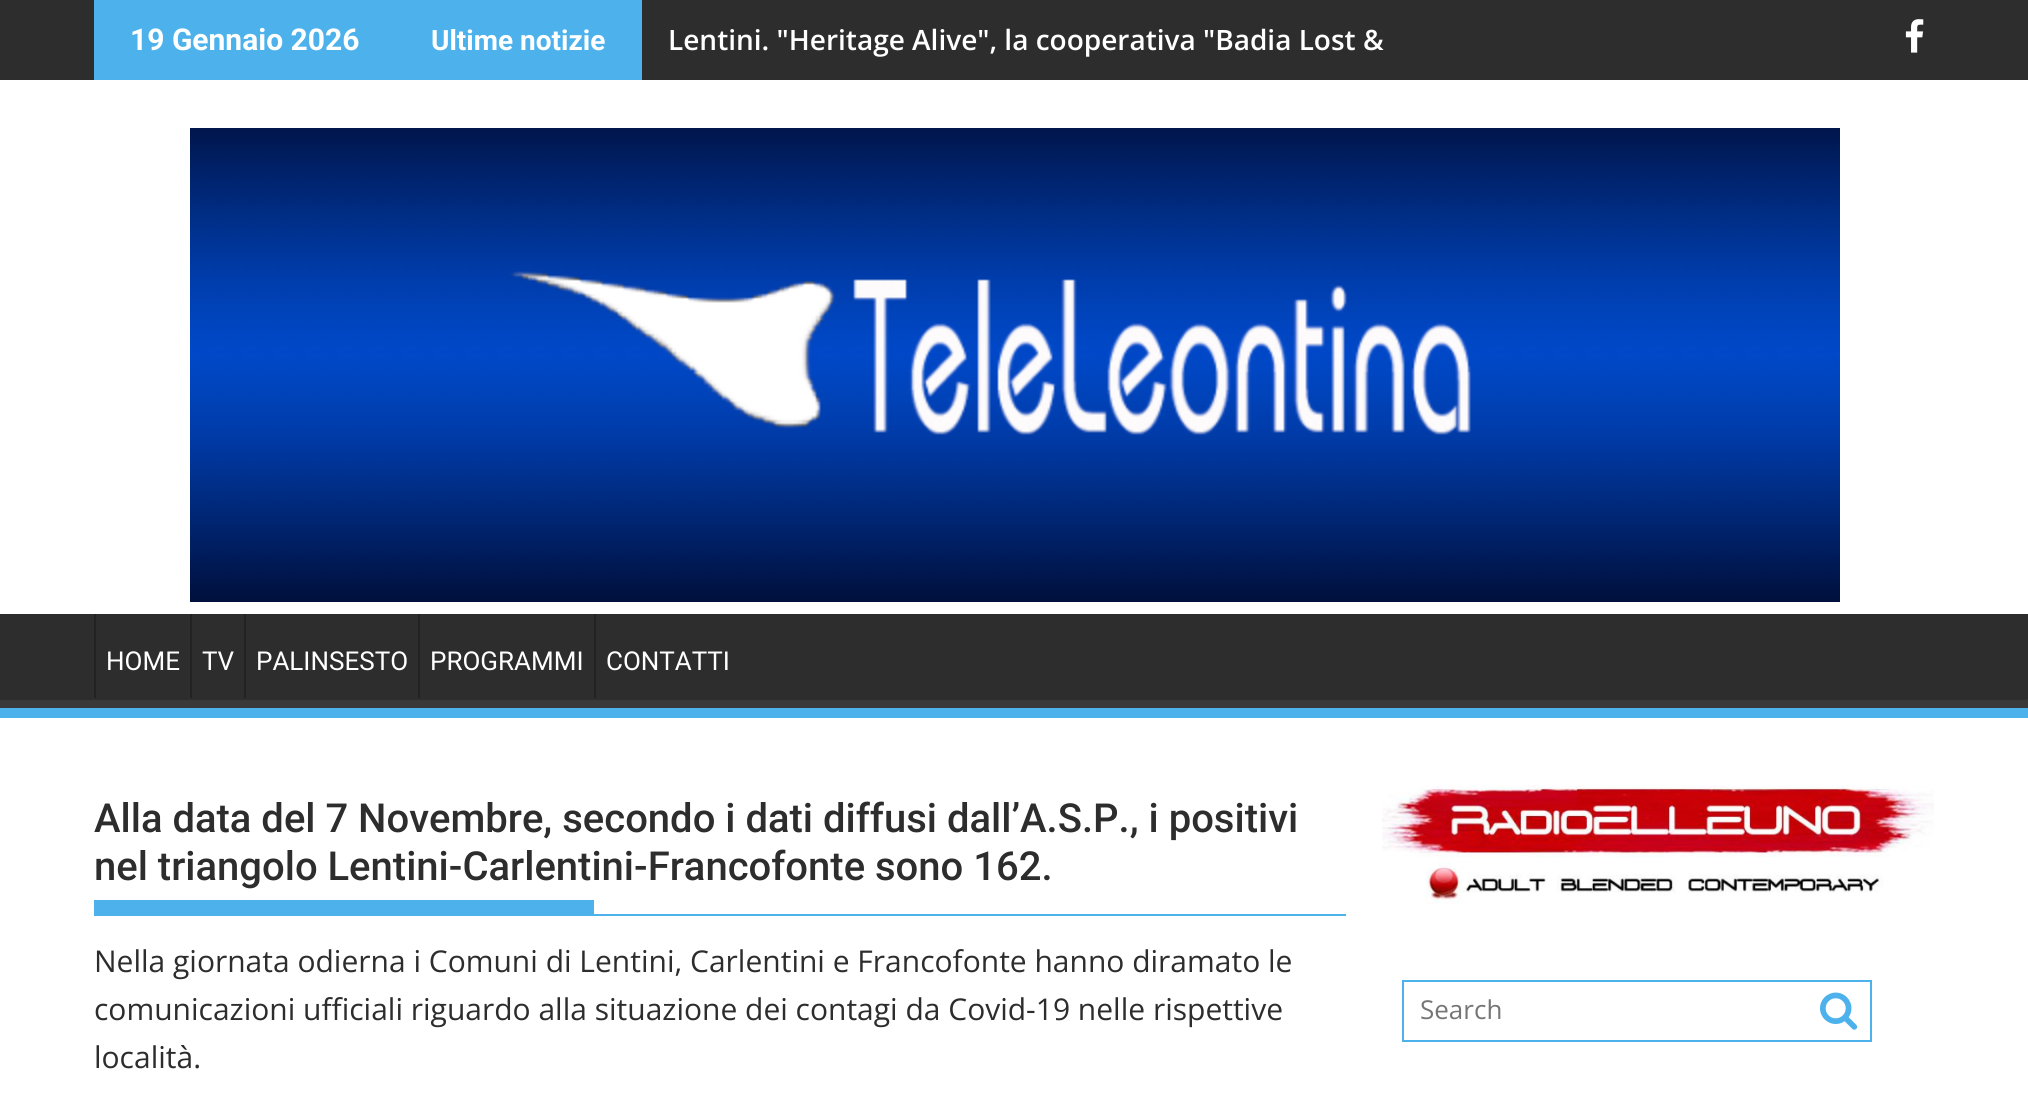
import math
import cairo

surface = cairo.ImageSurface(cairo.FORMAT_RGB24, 2028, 1111)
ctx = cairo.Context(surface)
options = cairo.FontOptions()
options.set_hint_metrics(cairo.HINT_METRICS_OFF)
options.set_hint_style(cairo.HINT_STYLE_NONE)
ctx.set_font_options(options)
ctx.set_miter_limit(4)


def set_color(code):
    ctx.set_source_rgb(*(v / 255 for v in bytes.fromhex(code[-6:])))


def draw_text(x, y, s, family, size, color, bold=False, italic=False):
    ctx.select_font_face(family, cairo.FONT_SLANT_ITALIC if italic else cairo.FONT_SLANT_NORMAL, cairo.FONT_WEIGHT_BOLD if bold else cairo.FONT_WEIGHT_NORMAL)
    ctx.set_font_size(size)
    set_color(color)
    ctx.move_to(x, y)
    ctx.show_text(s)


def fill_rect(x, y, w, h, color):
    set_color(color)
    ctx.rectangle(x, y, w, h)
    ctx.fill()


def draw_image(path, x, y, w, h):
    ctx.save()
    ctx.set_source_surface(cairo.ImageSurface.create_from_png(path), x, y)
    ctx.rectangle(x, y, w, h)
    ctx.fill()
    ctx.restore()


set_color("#ffffff")
ctx.paint()
fill_rect(0, 0, 2028, 80, "#2d2d2d")
fill_rect(94, 0, 548, 80, "#4db2ec")
draw_text(130, 50, "19 Gennaio 2026", "Roboto", 30, "#ffffff", bold=True)
draw_text(431, 50, "Ultime notizie", "Roboto", 28, "#ffffff", bold=True)
draw_text(668, 50, "Lentini. \"Heritage Alive\", la cooperativa \"Badia Lost &", "Open Sans SemiBold", 28, "#ffffff")
draw_image("assets/img1.png", 1905, 19, 19, 34)
draw_image("assets/img2.png", 190, 128, 1650, 474)
fill_rect(0, 614, 2028, 86, "#2d2d2d")
ctx.save()
ctx.rectangle(0, 614, 2028, 94)
ctx.clip()
set_color("#393939")
ctx.set_fill_rule(cairo.FILL_RULE_EVEN_ODD)
ctx.new_path()
ctx.move_to(-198, 416)
ctx.line_to(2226, 416)
ctx.line_to(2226, 906)
ctx.line_to(-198, 906)
ctx.close_path()
ctx.move_to(-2, 602)
ctx.line_to(2026, 602)
ctx.curve_to(2027, 602, 2028, 603, 2028, 604)
ctx.line_to(2028, 698)
ctx.curve_to(2028, 699, 2027, 700, 2026, 700)
ctx.line_to(-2, 700)
ctx.curve_to(-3, 700, -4, 699, -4, 698)
ctx.line_to(-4, 604)
ctx.curve_to(-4, 603, -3, 602, -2, 602)
ctx.close_path()
ctx.fill()
ctx.restore()
fill_rect(0, 708, 2028, 10, "#4db2ec")
fill_rect(94, 614, 2, 84, "#222222")
draw_text(106, 670, "HOME", "Roboto", 26, "#ffffff")
fill_rect(190, 614, 2, 84, "#222222")
draw_text(202, 670, "TV", "Roboto", 26, "#ffffff")
fill_rect(244, 614, 2, 84, "#222222")
draw_text(256, 670, "PALINSESTO", "Roboto", 26, "#ffffff")
fill_rect(418, 614, 2, 84, "#222222")
draw_text(430, 670, "PROGRAMMI", "Roboto", 26, "#ffffff")
fill_rect(594, 614, 2, 84, "#222222")
draw_text(606, 670, "CONTATTI", "Roboto", 26, "#ffffff")
fill_rect(94, 914, 1252, 2, "#4db2ec")
draw_text(94, 832, "Alla data del 7 Novembre, secondo i dati diffusi dall’A.S.P., i positivi", "Roboto Medium", 40, "#2d2d2d")
draw_text(94, 880, "nel triangolo Lentini-Carlentini-Francofonte sono 162.", "Roboto Medium", 40, "#2d2d2d")
fill_rect(94, 900, 500, 14, "#4db2ec")
draw_text(94, 972, "Nella giornata odierna i Comuni di Lentini, Carlentini e Francofonte hanno diramato le", "Open Sans", 30, "#2d2d2d")
draw_text(94, 1020, "comunicazioni ufficiali riguardo alla situazione dei contagi da Covid-19 nelle rispettive", "Open Sans", 30, "#2d2d2d")
draw_text(94, 1068, "località.", "Open Sans", 30, "#2d2d2d")
draw_image("assets/img3.png", 1382, 785, 552, 119)
ctx.rectangle(1403, 981, 468, 60)
set_color("#4db2ec")
ctx.stroke()
draw_text(1420, 1019, "Search", "Open Sans", 26, "#757575")
draw_image("assets/img4.png", 1820, 992, 38, 38)
surface.write_to_png("output.png")
